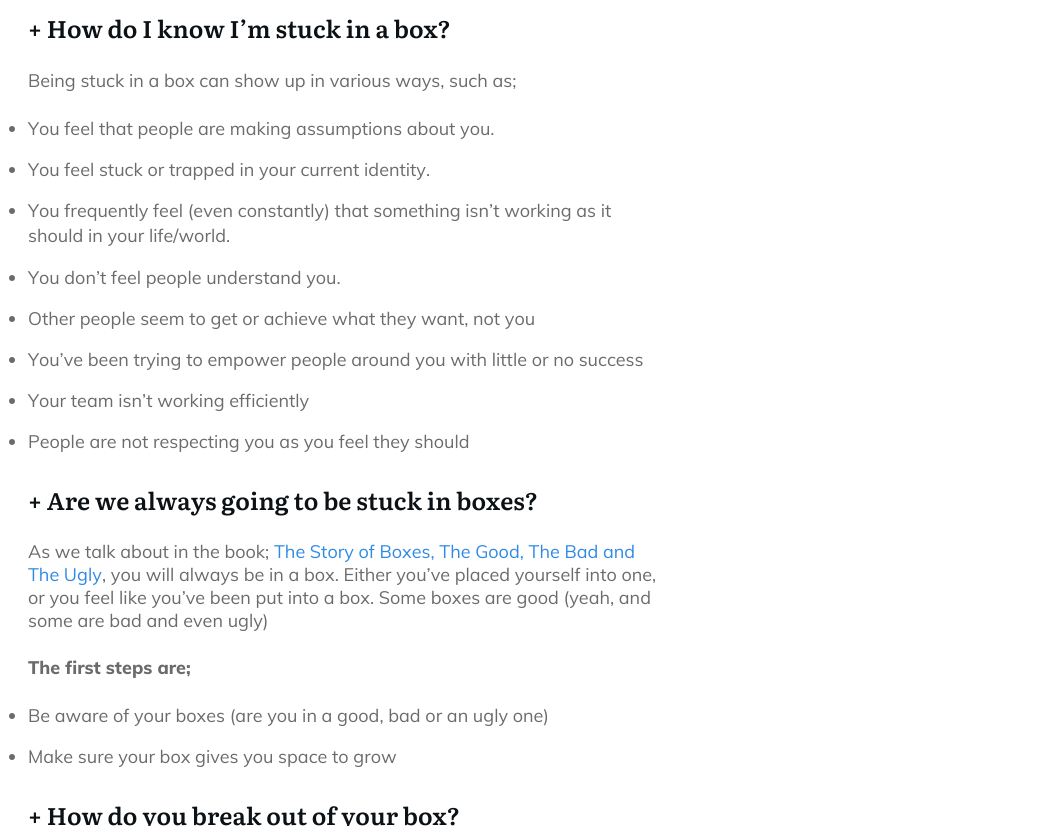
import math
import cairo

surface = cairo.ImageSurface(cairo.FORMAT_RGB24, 1058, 826)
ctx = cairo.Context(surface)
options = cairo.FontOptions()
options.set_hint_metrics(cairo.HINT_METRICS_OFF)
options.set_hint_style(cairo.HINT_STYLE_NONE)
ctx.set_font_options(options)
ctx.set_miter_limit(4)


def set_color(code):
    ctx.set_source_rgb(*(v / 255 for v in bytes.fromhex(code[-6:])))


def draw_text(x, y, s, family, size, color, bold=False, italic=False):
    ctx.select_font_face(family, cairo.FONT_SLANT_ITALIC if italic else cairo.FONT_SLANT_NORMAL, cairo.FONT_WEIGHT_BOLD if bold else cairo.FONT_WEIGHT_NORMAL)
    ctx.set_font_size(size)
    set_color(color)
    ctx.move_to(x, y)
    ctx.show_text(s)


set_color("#ffffff")
ctx.paint()
draw_text(28, 38, "+ How do I know I’m stuck in a box?", "Literata SemiBold", 24, "#0c1115")
draw_text(28, 87, "Being stuck in a box can show up in various ways, such as;", "Muli", 18, "#6a6b6c")
ctx.new_path()
ctx.arc(12, 129, 3, 0, 2 * math.pi)
ctx.fill()
draw_text(28, 135, "You feel that people are making assumptions about you.", "Muli", 18, "#6a6b6c")
ctx.new_path()
ctx.arc(12, 170, 3, 0, 2 * math.pi)
ctx.fill()
draw_text(28, 176, "You feel stuck or trapped in your current identity.", "Muli", 18, "#6a6b6c")
ctx.new_path()
ctx.arc(12, 211, 3, 0, 2 * math.pi)
ctx.fill()
draw_text(28, 217, "You frequently feel (even constantly) that something isn’t working as it", "Muli", 18, "#6a6b6c")
draw_text(28, 242, "should in your life/world.", "Muli", 18, "#6a6b6c")
ctx.new_path()
ctx.arc(12, 278, 3, 0, 2 * math.pi)
ctx.fill()
draw_text(28, 284, "You don’t feel people understand you.", "Muli", 18, "#6a6b6c")
ctx.new_path()
ctx.arc(12, 319, 3, 0, 2 * math.pi)
ctx.fill()
draw_text(28, 325, "Other people seem to get or achieve what they want, not you", "Muli", 18, "#6a6b6c")
ctx.new_path()
ctx.arc(12, 360, 3, 0, 2 * math.pi)
ctx.fill()
draw_text(28, 366, "You’ve been trying to empower people around you with little or no success", "Muli", 18, "#6a6b6c")
ctx.new_path()
ctx.arc(12, 401, 3, 0, 2 * math.pi)
ctx.fill()
draw_text(28, 407, "Your team isn’t working efficiently", "Muli", 18, "#6a6b6c")
ctx.new_path()
ctx.arc(12, 442, 3, 0, 2 * math.pi)
ctx.fill()
draw_text(28, 448, "People are not respecting you as you feel they should", "Muli", 18, "#6a6b6c")
draw_text(28, 510, "+ Are we always going to be stuck in boxes?", "Literata SemiBold", 24, "#0c1115")
draw_text(28, 558, "As we talk about in the book;", "Muli", 18, "#6a6b6c")
draw_text(274, 558, "The Story of Boxes, The Good, The Bad and", "Muli", 18, "#2f8ae4")
draw_text(28, 581, "The Ugly", "Muli", 18, "#2f8ae4")
draw_text(102, 581, ", you will always be in a box. Either you’ve placed yourself into one,", "Muli", 18, "#6a6b6c")
draw_text(28, 604, "or you feel like you’ve been put into a box. Some boxes are good (yeah, and", "Muli", 18, "#6a6b6c")
draw_text(28, 627, "some are bad and even ugly)", "Muli", 18, "#6a6b6c")
draw_text(28, 674, "The first steps are;", "Muli ExtraBold", 18, "#6a6b6c")
ctx.new_path()
ctx.arc(12, 716, 3, 0, 2 * math.pi)
ctx.fill()
draw_text(28, 722, "Be aware of your boxes (are you in a good, bad or an ugly one)", "Muli", 18, "#6a6b6c")
ctx.new_path()
ctx.arc(12, 757, 3, 0, 2 * math.pi)
ctx.fill()
draw_text(28, 763, "Make sure your box gives you space to grow", "Muli", 18, "#6a6b6c")
draw_text(28, 825, "+ How do you break out of your box?", "Literata SemiBold", 24, "#0c1115")
surface.write_to_png("output.png")
